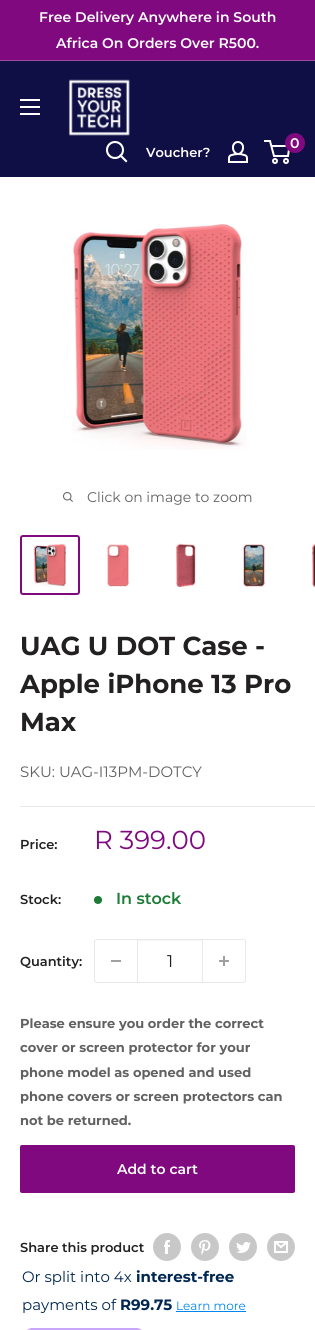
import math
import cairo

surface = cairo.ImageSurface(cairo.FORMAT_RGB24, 315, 1330)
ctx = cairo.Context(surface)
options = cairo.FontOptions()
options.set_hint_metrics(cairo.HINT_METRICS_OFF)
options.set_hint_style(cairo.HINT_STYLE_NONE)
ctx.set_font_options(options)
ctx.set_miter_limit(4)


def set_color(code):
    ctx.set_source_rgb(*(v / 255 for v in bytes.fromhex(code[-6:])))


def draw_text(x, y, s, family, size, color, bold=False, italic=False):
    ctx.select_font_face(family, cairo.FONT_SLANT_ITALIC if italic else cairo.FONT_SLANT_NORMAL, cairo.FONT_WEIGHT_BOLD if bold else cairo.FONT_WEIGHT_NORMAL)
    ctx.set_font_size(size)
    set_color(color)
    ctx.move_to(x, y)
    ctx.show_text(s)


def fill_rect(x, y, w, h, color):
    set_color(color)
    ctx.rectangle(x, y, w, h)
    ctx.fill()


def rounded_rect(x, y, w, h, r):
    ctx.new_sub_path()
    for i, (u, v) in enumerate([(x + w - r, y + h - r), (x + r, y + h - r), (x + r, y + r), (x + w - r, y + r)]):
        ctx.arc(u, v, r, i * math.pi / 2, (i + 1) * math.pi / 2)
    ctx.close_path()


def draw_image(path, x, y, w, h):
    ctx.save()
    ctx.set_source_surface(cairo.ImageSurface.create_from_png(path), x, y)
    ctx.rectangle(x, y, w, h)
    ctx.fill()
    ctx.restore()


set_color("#800980")
ctx.paint()
fill_rect(0, 60, 315, 1, "#9f4c9f")
draw_text(39, 22, "Free Delivery Anywhere in South", "Montserrat SemiBold", 14, "#ffffff")
draw_text(56, 48, "Africa On Orders Over R500.", "Montserrat SemiBold", 14, "#ffffff")
fill_rect(0, 61, 315, 116, "#0f0f46")
draw_image("assets/img1.png", 20, 99, 20, 16)
draw_image("assets/img2.png", 68, 79, 62, 57)
ctx.new_path()
ctx.move_to(126, 161)
ctx.line_to(120.5, 155.5)
set_color("#ffffff")
ctx.set_line_width(2.1)
ctx.set_line_cap(cairo.LINE_CAP_SQUARE)
ctx.stroke()
ctx.arc(115, 150, 8, 0, 2 * math.pi)
ctx.set_line_cap(cairo.LINE_CAP_BUTT)
ctx.stroke()
draw_text(146, 157, "Voucher?", "Montserrat SemiBold", 13, "#ffffff")
draw_image("assets/img3.png", 228, 141, 20, 22)
ctx.arc(275, 161, 2, 0, 2 * math.pi)
ctx.set_line_width(2)
ctx.stroke()
ctx.arc(286, 161, 2, 0, 2 * math.pi)
ctx.stroke()
ctx.new_path()
ctx.move_to(271.5, 146)
ctx.line_to(289.5, 146)
ctx.line_to(288, 156)
ctx.line_to(274, 156)
ctx.line_to(270, 141)
ctx.line_to(264, 141)
ctx.stroke()
set_color("#800980")
ctx.arc(295, 143, 10, 0, 2 * math.pi)
ctx.fill()
draw_text(290, 148, "0", "Montserrat SemiBold", 14, "#ffffff")
fill_rect(0, 177, 315, 1153, "#ffffff")
draw_image("assets/img4.png", 72, 224, 175, 226)
draw_image("assets/img5.png", 63, 492, 10, 10)
draw_text(87, 502, "Click on image to zoom", "Montserrat", 14, "#616161")
rounded_rect(21, 536, 58, 58, 2)
set_color("#800980")
ctx.stroke()
draw_image("assets/img6.png", 33, 543, 34, 44)
draw_image("assets/img7.png", 106, 544, 24, 43)
draw_image("assets/img8.png", 176, 543, 20, 45)
draw_image("assets/img9.png", 243, 544, 23, 43)
draw_image("assets/img10.png", 312, 543, 3, 44)
draw_text(20, 655, "UAG U DOT Case -", "Montserrat", 26, "#222021", bold=True)
draw_text(20, 693, "Apple iPhone 13 Pro", "Montserrat", 26, "#222021", bold=True)
draw_text(20, 731, "Max", "Montserrat", 26, "#222021", bold=True)
draw_text(20, 777, "SKU: UAG-I13PM-DOTCY", "Montserrat", 15, "#616161")
fill_rect(20, 806, 295, 1, "#e8e8e8")
draw_text(20, 849, "Price:", "Montserrat SemiBold", 13, "#222021")
draw_text(94, 849, "R 399.00", "Montserrat", 26, "#800980")
draw_text(20, 904, "Stock:", "Montserrat SemiBold", 13, "#222021")
set_color("#1c7b36")
ctx.new_path()
ctx.arc(98, 900, 4, 0, 2 * math.pi)
ctx.fill()
draw_text(116, 904, "In stock", "Montserrat SemiBold", 16, "#1c7b36")
draw_text(20, 966, "Quantity:", "Montserrat SemiBold", 13, "#222021")
rounded_rect(94.5, 939.5, 151, 43, 2.5)
set_color("#e8e8e8")
ctx.set_line_width(1)
ctx.stroke()
fill_rect(111, 960, 10, 2, "#a0a0a0")
fill_rect(138, 940, 64, 1, "#f6f6f6")
fill_rect(202, 940, 1, 42, "#e8e8e8")
fill_rect(137, 940, 1, 42, "#e8e8e8")
draw_text(167, 967, "1", "Montserrat", 17, "#222021")
draw_image("assets/img11.png", 219, 956, 10, 10)
draw_text(20, 1028, "Please ensure you order the correct", "Montserrat", 13, "#616161", bold=True)
draw_text(20, 1052, "cover or screen protector for your", "Montserrat", 13, "#616161", bold=True)
draw_text(20, 1077, "phone model as opened and used", "Montserrat", 13, "#616161", bold=True)
draw_text(20, 1101, "phone covers or screen protectors can", "Montserrat", 13, "#616161", bold=True)
draw_text(20, 1125, "not be returned.", "Montserrat", 13, "#616161", bold=True)
set_color("#800980")
rounded_rect(20, 1145, 275, 48, 2)
ctx.fill()
draw_text(117, 1174, "Add to cart", "Montserrat SemiBold", 14, "#ffffff")
draw_text(20, 1252, "Share this product", "Montserrat SemiBold", 13, "#222021")
draw_image("assets/img12.png", 153, 1233, 28, 28)
draw_image("assets/img13.png", 191, 1233, 28, 28)
draw_image("assets/img14.png", 229, 1233, 28, 28)
draw_image("assets/img15.png", 267, 1233, 28, 28)
draw_text(22, 1282, "Or split into 4x", "Montserrat", 15, "#002751")
draw_text(136, 1282, "interest-free", "Montserrat", 15, "#002751", bold=True)
draw_text(22, 1310, "payments of", "Montserrat", 15, "#002751")
draw_text(120, 1310, "R99.75", "Montserrat", 15, "#002751", bold=True)
draw_text(176, 1310, "Learn more", "Montserrat", 12, "#0086ef")
fill_rect(176, 1311, 70, 1, "#0086ef")
draw_image("assets/img16.png", 27, 1328, 115, 2)
surface.write_to_png("output.png")
